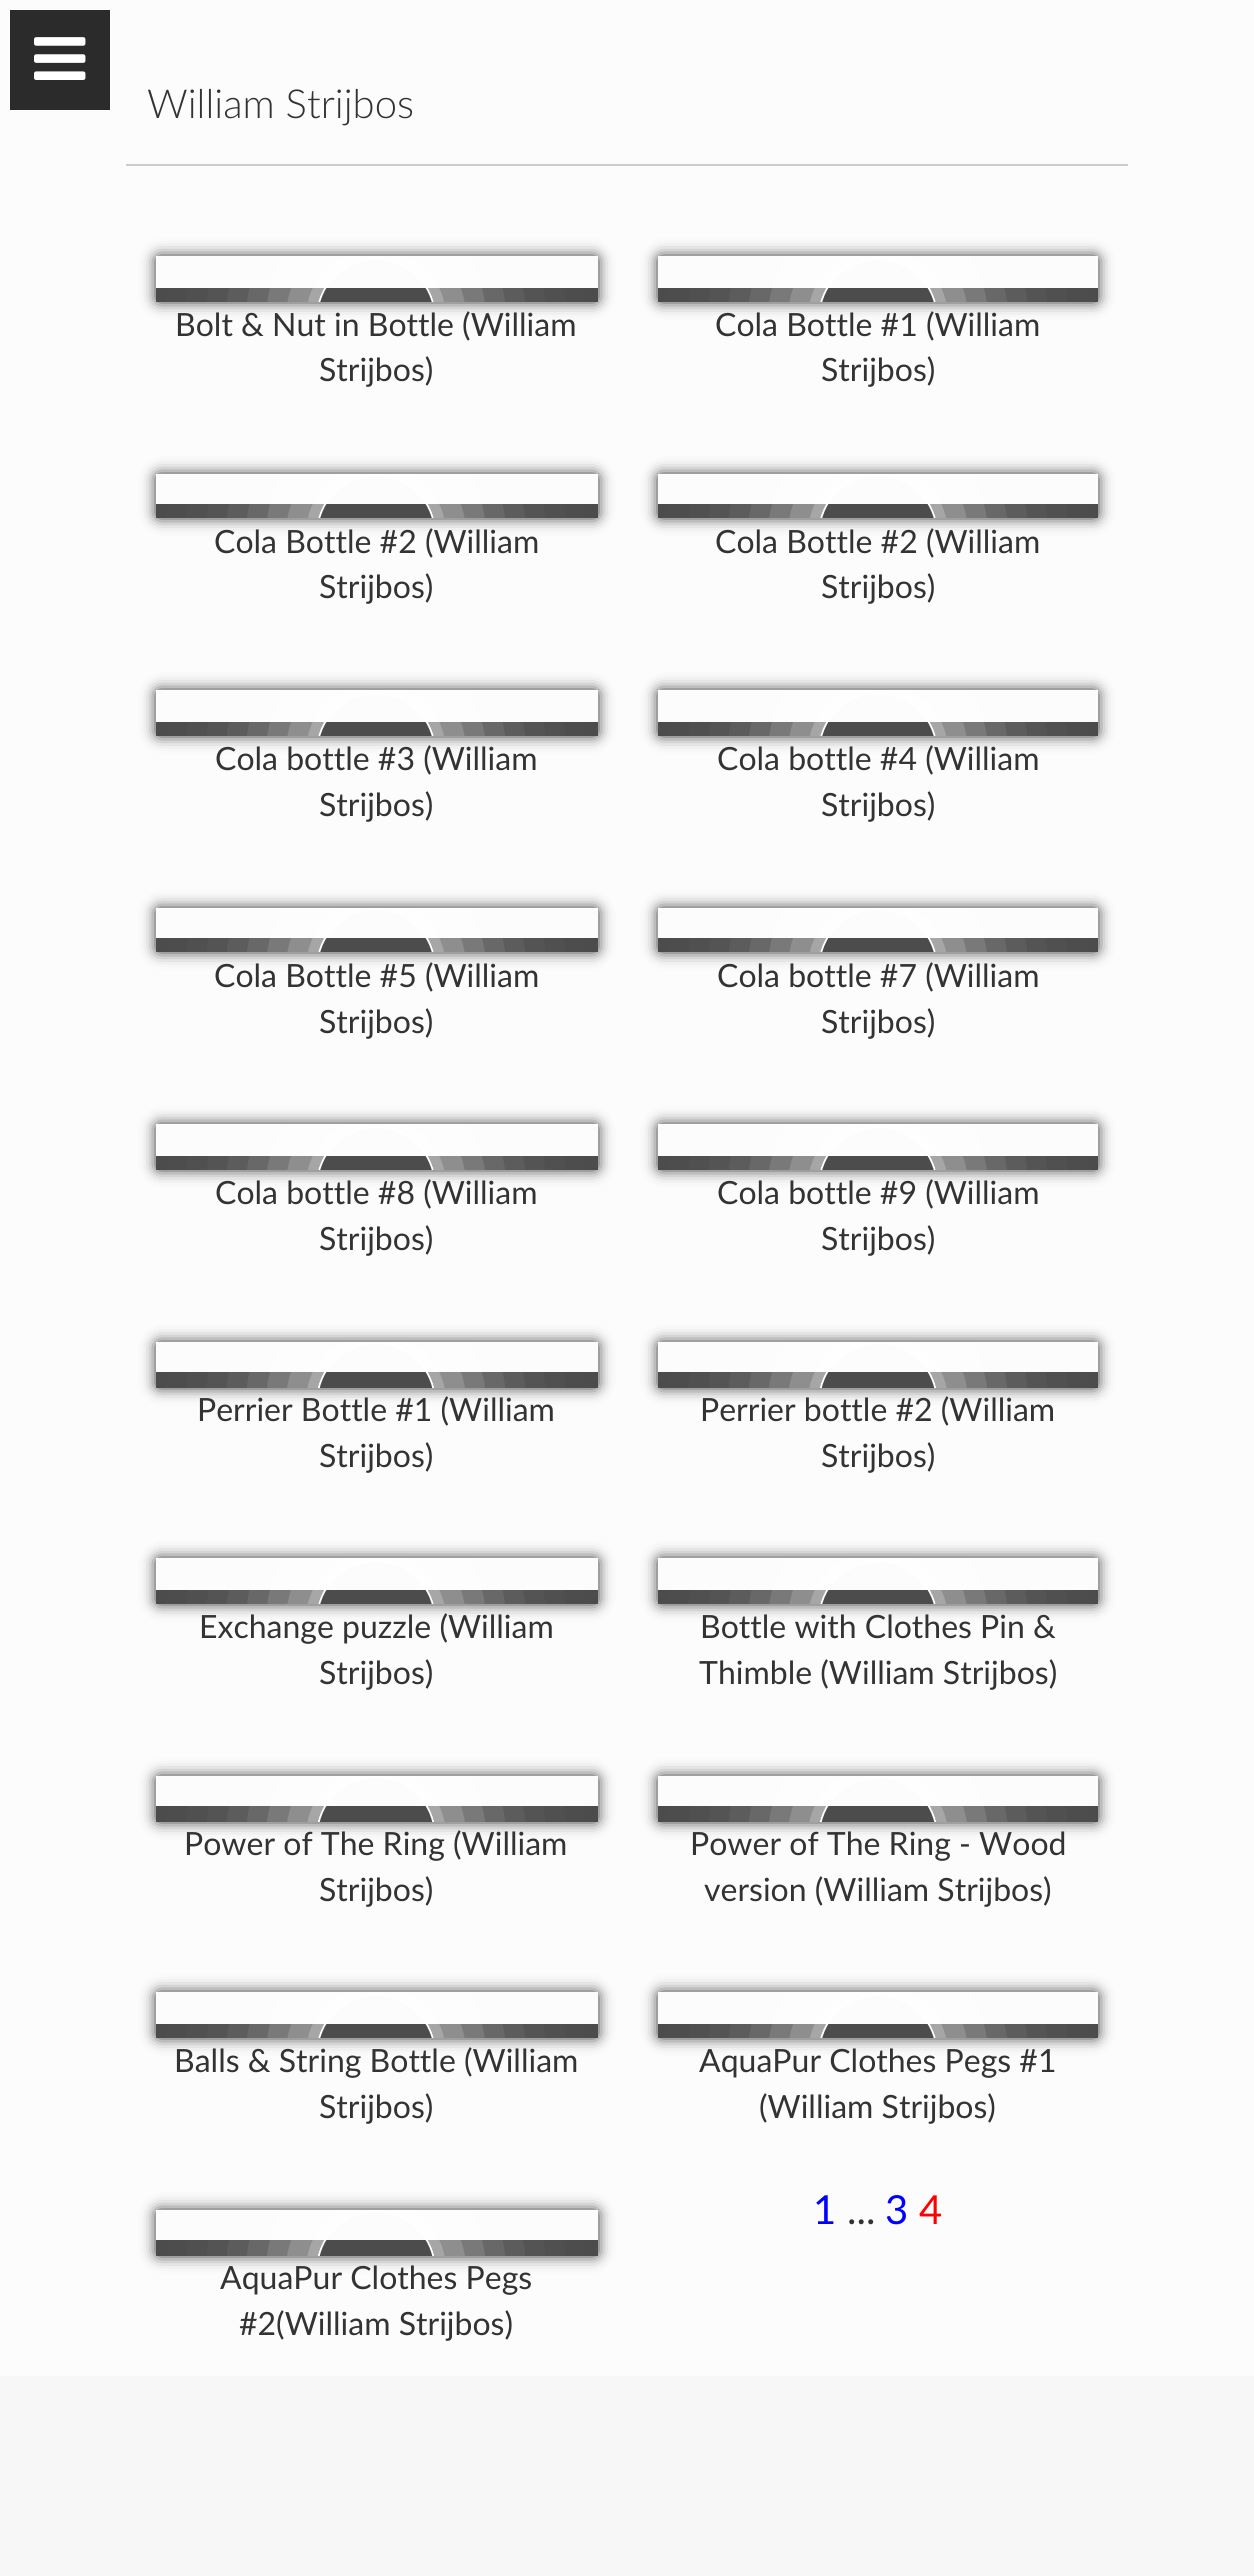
import math
import cairo

surface = cairo.ImageSurface(cairo.FORMAT_RGB24, 1254, 2576)
ctx = cairo.Context(surface)
options = cairo.FontOptions()
options.set_hint_metrics(cairo.HINT_METRICS_OFF)
options.set_hint_style(cairo.HINT_STYLE_NONE)
ctx.set_font_options(options)
ctx.set_miter_limit(4)


def set_color(code):
    ctx.set_source_rgb(*(v / 255 for v in bytes.fromhex(code[-6:])))


def draw_text(x, y, s, family, size, color, bold=False, italic=False):
    ctx.select_font_face(family, cairo.FONT_SLANT_ITALIC if italic else cairo.FONT_SLANT_NORMAL, cairo.FONT_WEIGHT_BOLD if bold else cairo.FONT_WEIGHT_NORMAL)
    ctx.set_font_size(size)
    set_color(color)
    ctx.move_to(x, y)
    ctx.show_text(s)


def fill_rect(x, y, w, h, color):
    set_color(color)
    ctx.rectangle(x, y, w, h)
    ctx.fill()


def rounded_rect(x, y, w, h, r):
    ctx.new_sub_path()
    for i, (u, v) in enumerate([(x + w - r, y + h - r), (x + r, y + h - r), (x + r, y + r), (x + w - r, y + r)]):
        ctx.arc(u, v, r, i * math.pi / 2, (i + 1) * math.pi / 2)
    ctx.close_path()


def draw_shadow(x, y, w, h, r, blur, alpha):
    ctx.push_group_with_content(cairo.CONTENT_ALPHA)
    ctx.set_operator(cairo.OPERATOR_SOURCE)
    for i in range(15, -16, -2):
        e = blur * i / 6
        if min(w, h) + 2 * e > 0:
            ctx.set_source_rgba(0, 0, 0, alpha * math.erfc((i - 1) / 8.5) / 2)
            rounded_rect(x - e, y - e, w + 2 * e, h + 2 * e, max(0, min(r + e + blur * .6, min(w, h) / 2 + e)))
            ctx.fill()
    ctx.mask(ctx.pop_group())


def draw_image(path, x, y, w, h):
    ctx.save()
    ctx.set_source_surface(cairo.ImageSurface.create_from_png(path), x, y)
    ctx.rectangle(x, y, w, h)
    ctx.fill()
    ctx.restore()


set_color("#f7f7f7")
ctx.paint()
fill_rect(0, 0, 1254, 2376, "#fcfcfc")
fill_rect(10, 10, 100, 100, "#2b2b2b")
draw_image("assets/img1.png", 34, 37, 52, 43)
fill_rect(126, 164, 1002, 2, "#cccccc")
draw_text(147, 118, "William Strijbos", "Lato Light", 40, "#333333")
ctx.save()
ctx.set_fill_rule(cairo.FILL_RULE_EVEN_ODD)
ctx.new_path()
ctx.move_to(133, 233)
ctx.line_to(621, 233)
ctx.line_to(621, 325)
ctx.line_to(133, 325)
ctx.close_path()
ctx.move_to(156, 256)
ctx.line_to(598, 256)
ctx.line_to(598, 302)
ctx.line_to(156, 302)
ctx.close_path()
ctx.clip()
set_color("#000000")
draw_shadow(158, 258, 438, 42, 0, 8, 1)
ctx.restore()
fill_rect(156, 288, 442, 14, "#4c4c4c")
ctx.save()
ctx.rectangle(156, 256, 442, 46)
ctx.clip()
ctx.set_fill_rule(cairo.FILL_RULE_EVEN_ODD)
ctx.new_path()
ctx.move_to(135, 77)
ctx.line_to(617, 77)
ctx.line_to(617, 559)
ctx.line_to(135, 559)
ctx.close_path()
ctx.move_to(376, 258)
ctx.curve_to(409, 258, 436, 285, 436, 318)
ctx.curve_to(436, 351, 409, 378, 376, 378)
ctx.curve_to(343, 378, 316, 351, 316, 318)
ctx.curve_to(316, 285, 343, 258, 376, 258)
ctx.close_path()
ctx.clip()
set_color("#ffffff")
draw_shadow(316, 258, 120, 120, 60, 60, 1)
ctx.restore()
draw_text(175, 336, "Bolt & Nut in Bottle (William", "Lato", 32, "#333333")
draw_text(319, 381, "Strijbos)", "Lato", 32, "#333333")
ctx.save()
ctx.rectangle(156, 256, 442, 46)
ctx.clip()
ctx.arc(376, 318, 59, 0, 2 * math.pi)
set_color("#ffffff")
ctx.stroke()
ctx.restore()
ctx.save()
ctx.set_fill_rule(cairo.FILL_RULE_EVEN_ODD)
ctx.new_path()
ctx.move_to(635, 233)
ctx.line_to(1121, 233)
ctx.line_to(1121, 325)
ctx.line_to(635, 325)
ctx.close_path()
ctx.move_to(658, 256)
ctx.line_to(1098, 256)
ctx.line_to(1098, 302)
ctx.line_to(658, 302)
ctx.close_path()
ctx.clip()
set_color("#000000")
draw_shadow(660, 258, 436, 42, 0, 8, 1)
ctx.restore()
fill_rect(658, 288, 440, 14, "#4c4c4c")
ctx.save()
ctx.rectangle(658, 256, 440, 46)
ctx.clip()
ctx.set_fill_rule(cairo.FILL_RULE_EVEN_ODD)
ctx.new_path()
ctx.move_to(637, 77)
ctx.line_to(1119, 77)
ctx.line_to(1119, 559)
ctx.line_to(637, 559)
ctx.close_path()
ctx.move_to(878, 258)
ctx.curve_to(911, 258, 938, 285, 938, 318)
ctx.curve_to(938, 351, 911, 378, 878, 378)
ctx.curve_to(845, 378, 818, 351, 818, 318)
ctx.curve_to(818, 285, 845, 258, 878, 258)
ctx.close_path()
ctx.clip()
set_color("#ffffff")
draw_shadow(818, 258, 120, 120, 60, 60, 1)
ctx.restore()
draw_text(715, 336, "Cola Bottle #1 (William", "Lato", 32, "#333333")
draw_text(821, 381, "Strijbos)", "Lato", 32, "#333333")
ctx.save()
ctx.rectangle(658, 256, 440, 46)
ctx.clip()
ctx.arc(878, 318, 59, 0, 2 * math.pi)
set_color("#ffffff")
ctx.stroke()
ctx.restore()
ctx.save()
ctx.set_fill_rule(cairo.FILL_RULE_EVEN_ODD)
ctx.new_path()
ctx.move_to(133, 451)
ctx.line_to(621, 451)
ctx.line_to(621, 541)
ctx.line_to(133, 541)
ctx.close_path()
ctx.move_to(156, 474)
ctx.line_to(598, 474)
ctx.line_to(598, 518)
ctx.line_to(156, 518)
ctx.close_path()
ctx.clip()
set_color("#000000")
draw_shadow(158, 476, 438, 40, 0, 8, 1)
ctx.restore()
fill_rect(156, 504, 442, 14, "#4c4c4c")
ctx.save()
ctx.rectangle(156, 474, 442, 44)
ctx.clip()
ctx.set_fill_rule(cairo.FILL_RULE_EVEN_ODD)
ctx.new_path()
ctx.move_to(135, 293)
ctx.line_to(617, 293)
ctx.line_to(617, 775)
ctx.line_to(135, 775)
ctx.close_path()
ctx.move_to(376, 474)
ctx.curve_to(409, 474, 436, 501, 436, 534)
ctx.curve_to(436, 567, 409, 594, 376, 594)
ctx.curve_to(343, 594, 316, 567, 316, 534)
ctx.curve_to(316, 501, 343, 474, 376, 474)
ctx.close_path()
ctx.clip()
set_color("#ffffff")
draw_shadow(316, 474, 120, 120, 60, 60, 1)
ctx.restore()
draw_text(214, 553, "Cola Bottle #2 (William", "Lato", 32, "#333333")
draw_text(319, 598, "Strijbos)", "Lato", 32, "#333333")
ctx.save()
ctx.rectangle(156, 474, 442, 44)
ctx.clip()
ctx.arc(376, 534, 59, 0, 2 * math.pi)
set_color("#ffffff")
ctx.stroke()
ctx.restore()
ctx.save()
ctx.set_fill_rule(cairo.FILL_RULE_EVEN_ODD)
ctx.new_path()
ctx.move_to(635, 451)
ctx.line_to(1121, 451)
ctx.line_to(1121, 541)
ctx.line_to(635, 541)
ctx.close_path()
ctx.move_to(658, 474)
ctx.line_to(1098, 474)
ctx.line_to(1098, 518)
ctx.line_to(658, 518)
ctx.close_path()
ctx.clip()
set_color("#000000")
draw_shadow(660, 476, 436, 40, 0, 8, 1)
ctx.restore()
fill_rect(658, 504, 440, 14, "#4c4c4c")
ctx.save()
ctx.rectangle(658, 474, 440, 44)
ctx.clip()
ctx.set_fill_rule(cairo.FILL_RULE_EVEN_ODD)
ctx.new_path()
ctx.move_to(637, 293)
ctx.line_to(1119, 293)
ctx.line_to(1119, 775)
ctx.line_to(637, 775)
ctx.close_path()
ctx.move_to(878, 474)
ctx.curve_to(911, 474, 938, 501, 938, 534)
ctx.curve_to(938, 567, 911, 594, 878, 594)
ctx.curve_to(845, 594, 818, 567, 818, 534)
ctx.curve_to(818, 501, 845, 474, 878, 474)
ctx.close_path()
ctx.clip()
set_color("#ffffff")
draw_shadow(818, 474, 120, 120, 60, 60, 1)
ctx.restore()
draw_text(715, 553, "Cola Bottle #2 (William", "Lato", 32, "#333333")
draw_text(821, 598, "Strijbos)", "Lato", 32, "#333333")
ctx.save()
ctx.rectangle(658, 474, 440, 44)
ctx.clip()
ctx.arc(878, 534, 59, 0, 2 * math.pi)
set_color("#ffffff")
ctx.stroke()
ctx.restore()
ctx.save()
ctx.set_fill_rule(cairo.FILL_RULE_EVEN_ODD)
ctx.new_path()
ctx.move_to(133, 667)
ctx.line_to(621, 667)
ctx.line_to(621, 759)
ctx.line_to(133, 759)
ctx.close_path()
ctx.move_to(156, 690)
ctx.line_to(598, 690)
ctx.line_to(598, 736)
ctx.line_to(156, 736)
ctx.close_path()
ctx.clip()
set_color("#000000")
draw_shadow(158, 692, 438, 42, 0, 8, 1)
ctx.restore()
fill_rect(156, 722, 442, 14, "#4c4c4c")
ctx.save()
ctx.rectangle(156, 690, 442, 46)
ctx.clip()
ctx.set_fill_rule(cairo.FILL_RULE_EVEN_ODD)
ctx.new_path()
ctx.move_to(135, 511)
ctx.line_to(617, 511)
ctx.line_to(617, 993)
ctx.line_to(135, 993)
ctx.close_path()
ctx.move_to(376, 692)
ctx.curve_to(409, 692, 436, 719, 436, 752)
ctx.curve_to(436, 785, 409, 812, 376, 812)
ctx.curve_to(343, 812, 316, 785, 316, 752)
ctx.curve_to(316, 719, 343, 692, 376, 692)
ctx.close_path()
ctx.clip()
set_color("#ffffff")
draw_shadow(316, 692, 120, 120, 60, 60, 1)
ctx.restore()
draw_text(215, 770, "Cola bottle #3 (William", "Lato", 32, "#333333")
draw_text(319, 816, "Strijbos)", "Lato", 32, "#333333")
ctx.save()
ctx.rectangle(156, 690, 442, 46)
ctx.clip()
ctx.arc(376, 752, 59, 0, 2 * math.pi)
set_color("#ffffff")
ctx.stroke()
ctx.restore()
ctx.save()
ctx.set_fill_rule(cairo.FILL_RULE_EVEN_ODD)
ctx.new_path()
ctx.move_to(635, 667)
ctx.line_to(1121, 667)
ctx.line_to(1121, 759)
ctx.line_to(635, 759)
ctx.close_path()
ctx.move_to(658, 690)
ctx.line_to(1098, 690)
ctx.line_to(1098, 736)
ctx.line_to(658, 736)
ctx.close_path()
ctx.clip()
set_color("#000000")
draw_shadow(660, 692, 436, 42, 0, 8, 1)
ctx.restore()
fill_rect(658, 722, 440, 14, "#4c4c4c")
ctx.save()
ctx.rectangle(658, 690, 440, 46)
ctx.clip()
ctx.set_fill_rule(cairo.FILL_RULE_EVEN_ODD)
ctx.new_path()
ctx.move_to(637, 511)
ctx.line_to(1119, 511)
ctx.line_to(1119, 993)
ctx.line_to(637, 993)
ctx.close_path()
ctx.move_to(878, 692)
ctx.curve_to(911, 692, 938, 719, 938, 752)
ctx.curve_to(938, 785, 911, 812, 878, 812)
ctx.curve_to(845, 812, 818, 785, 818, 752)
ctx.curve_to(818, 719, 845, 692, 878, 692)
ctx.close_path()
ctx.clip()
set_color("#ffffff")
draw_shadow(818, 692, 120, 120, 60, 60, 1)
ctx.restore()
draw_text(717, 770, "Cola bottle #4 (William", "Lato", 32, "#333333")
draw_text(821, 816, "Strijbos)", "Lato", 32, "#333333")
ctx.save()
ctx.rectangle(658, 690, 440, 46)
ctx.clip()
ctx.arc(878, 752, 59, 0, 2 * math.pi)
set_color("#ffffff")
ctx.stroke()
ctx.restore()
ctx.save()
ctx.set_fill_rule(cairo.FILL_RULE_EVEN_ODD)
ctx.new_path()
ctx.move_to(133, 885)
ctx.line_to(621, 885)
ctx.line_to(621, 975)
ctx.line_to(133, 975)
ctx.close_path()
ctx.move_to(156, 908)
ctx.line_to(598, 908)
ctx.line_to(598, 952)
ctx.line_to(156, 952)
ctx.close_path()
ctx.clip()
set_color("#000000")
draw_shadow(158, 910, 438, 40, 0, 8, 1)
ctx.restore()
fill_rect(156, 938, 442, 14, "#4c4c4c")
ctx.save()
ctx.rectangle(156, 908, 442, 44)
ctx.clip()
ctx.set_fill_rule(cairo.FILL_RULE_EVEN_ODD)
ctx.new_path()
ctx.move_to(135, 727)
ctx.line_to(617, 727)
ctx.line_to(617, 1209)
ctx.line_to(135, 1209)
ctx.close_path()
ctx.move_to(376, 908)
ctx.curve_to(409, 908, 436, 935, 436, 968)
ctx.curve_to(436, 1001, 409, 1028, 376, 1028)
ctx.curve_to(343, 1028, 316, 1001, 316, 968)
ctx.curve_to(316, 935, 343, 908, 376, 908)
ctx.close_path()
ctx.clip()
set_color("#ffffff")
draw_shadow(316, 908, 120, 120, 60, 60, 1)
ctx.restore()
draw_text(214, 987, "Cola Bottle #5 (William", "Lato", 32, "#333333")
draw_text(319, 1033, "Strijbos)", "Lato", 32, "#333333")
ctx.save()
ctx.rectangle(156, 908, 442, 44)
ctx.clip()
ctx.arc(376, 968, 59, 0, 2 * math.pi)
set_color("#ffffff")
ctx.stroke()
ctx.restore()
ctx.save()
ctx.set_fill_rule(cairo.FILL_RULE_EVEN_ODD)
ctx.new_path()
ctx.move_to(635, 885)
ctx.line_to(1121, 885)
ctx.line_to(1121, 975)
ctx.line_to(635, 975)
ctx.close_path()
ctx.move_to(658, 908)
ctx.line_to(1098, 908)
ctx.line_to(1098, 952)
ctx.line_to(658, 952)
ctx.close_path()
ctx.clip()
set_color("#000000")
draw_shadow(660, 910, 436, 40, 0, 8, 1)
ctx.restore()
fill_rect(658, 938, 440, 14, "#4c4c4c")
ctx.save()
ctx.rectangle(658, 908, 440, 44)
ctx.clip()
ctx.set_fill_rule(cairo.FILL_RULE_EVEN_ODD)
ctx.new_path()
ctx.move_to(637, 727)
ctx.line_to(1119, 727)
ctx.line_to(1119, 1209)
ctx.line_to(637, 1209)
ctx.close_path()
ctx.move_to(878, 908)
ctx.curve_to(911, 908, 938, 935, 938, 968)
ctx.curve_to(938, 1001, 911, 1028, 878, 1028)
ctx.curve_to(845, 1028, 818, 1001, 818, 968)
ctx.curve_to(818, 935, 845, 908, 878, 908)
ctx.close_path()
ctx.clip()
set_color("#ffffff")
draw_shadow(818, 908, 120, 120, 60, 60, 1)
ctx.restore()
draw_text(717, 987, "Cola bottle #7 (William", "Lato", 32, "#333333")
draw_text(821, 1033, "Strijbos)", "Lato", 32, "#333333")
ctx.save()
ctx.rectangle(658, 908, 440, 44)
ctx.clip()
ctx.arc(878, 968, 59, 0, 2 * math.pi)
set_color("#ffffff")
ctx.stroke()
ctx.restore()
ctx.save()
ctx.set_fill_rule(cairo.FILL_RULE_EVEN_ODD)
ctx.new_path()
ctx.move_to(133, 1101)
ctx.line_to(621, 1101)
ctx.line_to(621, 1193)
ctx.line_to(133, 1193)
ctx.close_path()
ctx.move_to(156, 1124)
ctx.line_to(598, 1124)
ctx.line_to(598, 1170)
ctx.line_to(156, 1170)
ctx.close_path()
ctx.clip()
set_color("#000000")
draw_shadow(158, 1126, 438, 42, 0, 8, 1)
ctx.restore()
fill_rect(156, 1156, 442, 14, "#4c4c4c")
ctx.save()
ctx.rectangle(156, 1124, 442, 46)
ctx.clip()
ctx.set_fill_rule(cairo.FILL_RULE_EVEN_ODD)
ctx.new_path()
ctx.move_to(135, 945)
ctx.line_to(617, 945)
ctx.line_to(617, 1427)
ctx.line_to(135, 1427)
ctx.close_path()
ctx.move_to(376, 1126)
ctx.curve_to(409, 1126, 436, 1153, 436, 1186)
ctx.curve_to(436, 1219, 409, 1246, 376, 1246)
ctx.curve_to(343, 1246, 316, 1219, 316, 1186)
ctx.curve_to(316, 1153, 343, 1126, 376, 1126)
ctx.close_path()
ctx.clip()
set_color("#ffffff")
draw_shadow(316, 1126, 120, 120, 60, 60, 1)
ctx.restore()
draw_text(215, 1204, "Cola bottle #8 (William", "Lato", 32, "#333333")
draw_text(319, 1250, "Strijbos)", "Lato", 32, "#333333")
ctx.save()
ctx.rectangle(156, 1124, 442, 46)
ctx.clip()
ctx.arc(376, 1186, 59, 0, 2 * math.pi)
set_color("#ffffff")
ctx.stroke()
ctx.restore()
ctx.save()
ctx.set_fill_rule(cairo.FILL_RULE_EVEN_ODD)
ctx.new_path()
ctx.move_to(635, 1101)
ctx.line_to(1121, 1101)
ctx.line_to(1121, 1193)
ctx.line_to(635, 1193)
ctx.close_path()
ctx.move_to(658, 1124)
ctx.line_to(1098, 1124)
ctx.line_to(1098, 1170)
ctx.line_to(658, 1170)
ctx.close_path()
ctx.clip()
set_color("#000000")
draw_shadow(660, 1126, 436, 42, 0, 8, 1)
ctx.restore()
fill_rect(658, 1156, 440, 14, "#4c4c4c")
ctx.save()
ctx.rectangle(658, 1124, 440, 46)
ctx.clip()
ctx.set_fill_rule(cairo.FILL_RULE_EVEN_ODD)
ctx.new_path()
ctx.move_to(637, 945)
ctx.line_to(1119, 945)
ctx.line_to(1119, 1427)
ctx.line_to(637, 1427)
ctx.close_path()
ctx.move_to(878, 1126)
ctx.curve_to(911, 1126, 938, 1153, 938, 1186)
ctx.curve_to(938, 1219, 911, 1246, 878, 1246)
ctx.curve_to(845, 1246, 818, 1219, 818, 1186)
ctx.curve_to(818, 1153, 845, 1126, 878, 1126)
ctx.close_path()
ctx.clip()
set_color("#ffffff")
draw_shadow(818, 1126, 120, 120, 60, 60, 1)
ctx.restore()
draw_text(717, 1204, "Cola bottle #9 (William", "Lato", 32, "#333333")
draw_text(821, 1250, "Strijbos)", "Lato", 32, "#333333")
ctx.save()
ctx.rectangle(658, 1124, 440, 46)
ctx.clip()
ctx.arc(878, 1186, 59, 0, 2 * math.pi)
set_color("#ffffff")
ctx.stroke()
ctx.restore()
ctx.save()
ctx.set_fill_rule(cairo.FILL_RULE_EVEN_ODD)
ctx.new_path()
ctx.move_to(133, 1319)
ctx.line_to(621, 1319)
ctx.line_to(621, 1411)
ctx.line_to(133, 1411)
ctx.close_path()
ctx.move_to(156, 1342)
ctx.line_to(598, 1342)
ctx.line_to(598, 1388)
ctx.line_to(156, 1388)
ctx.close_path()
ctx.clip()
set_color("#000000")
draw_shadow(158, 1344, 438, 42, 0, 8, 1)
ctx.restore()
fill_rect(156, 1372, 442, 16, "#4c4c4c")
ctx.save()
ctx.rectangle(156, 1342, 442, 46)
ctx.clip()
ctx.set_fill_rule(cairo.FILL_RULE_EVEN_ODD)
ctx.new_path()
ctx.move_to(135, 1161)
ctx.line_to(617, 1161)
ctx.line_to(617, 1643)
ctx.line_to(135, 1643)
ctx.close_path()
ctx.move_to(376, 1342)
ctx.curve_to(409, 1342, 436, 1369, 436, 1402)
ctx.curve_to(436, 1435, 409, 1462, 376, 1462)
ctx.curve_to(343, 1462, 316, 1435, 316, 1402)
ctx.curve_to(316, 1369, 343, 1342, 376, 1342)
ctx.close_path()
ctx.clip()
set_color("#ffffff")
draw_shadow(316, 1342, 120, 120, 60, 60, 1)
ctx.restore()
draw_text(197, 1421, "Perrier Bottle #1 (William", "Lato", 32, "#333333")
draw_text(319, 1467, "Strijbos)", "Lato", 32, "#333333")
ctx.save()
ctx.rectangle(156, 1342, 442, 46)
ctx.clip()
ctx.arc(376, 1402, 59, 0, 2 * math.pi)
set_color("#ffffff")
ctx.stroke()
ctx.restore()
ctx.save()
ctx.set_fill_rule(cairo.FILL_RULE_EVEN_ODD)
ctx.new_path()
ctx.move_to(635, 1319)
ctx.line_to(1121, 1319)
ctx.line_to(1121, 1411)
ctx.line_to(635, 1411)
ctx.close_path()
ctx.move_to(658, 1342)
ctx.line_to(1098, 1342)
ctx.line_to(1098, 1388)
ctx.line_to(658, 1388)
ctx.close_path()
ctx.clip()
set_color("#000000")
draw_shadow(660, 1344, 436, 42, 0, 8, 1)
ctx.restore()
fill_rect(658, 1372, 440, 16, "#4c4c4c")
ctx.save()
ctx.rectangle(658, 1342, 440, 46)
ctx.clip()
ctx.set_fill_rule(cairo.FILL_RULE_EVEN_ODD)
ctx.new_path()
ctx.move_to(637, 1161)
ctx.line_to(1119, 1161)
ctx.line_to(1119, 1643)
ctx.line_to(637, 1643)
ctx.close_path()
ctx.move_to(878, 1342)
ctx.curve_to(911, 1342, 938, 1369, 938, 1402)
ctx.curve_to(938, 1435, 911, 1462, 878, 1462)
ctx.curve_to(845, 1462, 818, 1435, 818, 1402)
ctx.curve_to(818, 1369, 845, 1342, 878, 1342)
ctx.close_path()
ctx.clip()
set_color("#ffffff")
draw_shadow(818, 1342, 120, 120, 60, 60, 1)
ctx.restore()
draw_text(700, 1421, "Perrier bottle #2 (William", "Lato", 32, "#333333")
draw_text(821, 1467, "Strijbos)", "Lato", 32, "#333333")
ctx.save()
ctx.rectangle(658, 1342, 440, 46)
ctx.clip()
ctx.arc(878, 1402, 59, 0, 2 * math.pi)
set_color("#ffffff")
ctx.stroke()
ctx.restore()
ctx.save()
ctx.set_fill_rule(cairo.FILL_RULE_EVEN_ODD)
ctx.new_path()
ctx.move_to(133, 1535)
ctx.line_to(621, 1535)
ctx.line_to(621, 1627)
ctx.line_to(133, 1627)
ctx.close_path()
ctx.move_to(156, 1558)
ctx.line_to(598, 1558)
ctx.line_to(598, 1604)
ctx.line_to(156, 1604)
ctx.close_path()
ctx.clip()
set_color("#000000")
draw_shadow(158, 1560, 438, 42, 0, 8, 1)
ctx.restore()
fill_rect(156, 1590, 442, 14, "#4c4c4c")
ctx.save()
ctx.rectangle(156, 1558, 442, 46)
ctx.clip()
ctx.set_fill_rule(cairo.FILL_RULE_EVEN_ODD)
ctx.new_path()
ctx.move_to(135, 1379)
ctx.line_to(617, 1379)
ctx.line_to(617, 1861)
ctx.line_to(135, 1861)
ctx.close_path()
ctx.move_to(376, 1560)
ctx.curve_to(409, 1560, 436, 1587, 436, 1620)
ctx.curve_to(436, 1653, 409, 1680, 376, 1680)
ctx.curve_to(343, 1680, 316, 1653, 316, 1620)
ctx.curve_to(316, 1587, 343, 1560, 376, 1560)
ctx.close_path()
ctx.clip()
set_color("#ffffff")
draw_shadow(316, 1560, 120, 120, 60, 60, 1)
ctx.restore()
draw_text(199, 1638, "Exchange puzzle (William", "Lato", 32, "#333333")
draw_text(319, 1684, "Strijbos)", "Lato", 32, "#333333")
ctx.save()
ctx.rectangle(156, 1558, 442, 46)
ctx.clip()
ctx.arc(376, 1620, 59, 0, 2 * math.pi)
set_color("#ffffff")
ctx.stroke()
ctx.restore()
ctx.save()
ctx.set_fill_rule(cairo.FILL_RULE_EVEN_ODD)
ctx.new_path()
ctx.move_to(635, 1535)
ctx.line_to(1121, 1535)
ctx.line_to(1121, 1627)
ctx.line_to(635, 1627)
ctx.close_path()
ctx.move_to(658, 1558)
ctx.line_to(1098, 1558)
ctx.line_to(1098, 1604)
ctx.line_to(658, 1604)
ctx.close_path()
ctx.clip()
set_color("#000000")
draw_shadow(660, 1560, 436, 42, 0, 8, 1)
ctx.restore()
fill_rect(658, 1590, 440, 14, "#4c4c4c")
ctx.save()
ctx.rectangle(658, 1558, 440, 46)
ctx.clip()
ctx.set_fill_rule(cairo.FILL_RULE_EVEN_ODD)
ctx.new_path()
ctx.move_to(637, 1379)
ctx.line_to(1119, 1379)
ctx.line_to(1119, 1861)
ctx.line_to(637, 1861)
ctx.close_path()
ctx.move_to(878, 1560)
ctx.curve_to(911, 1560, 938, 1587, 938, 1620)
ctx.curve_to(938, 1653, 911, 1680, 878, 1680)
ctx.curve_to(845, 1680, 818, 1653, 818, 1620)
ctx.curve_to(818, 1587, 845, 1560, 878, 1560)
ctx.close_path()
ctx.clip()
set_color("#ffffff")
draw_shadow(818, 1560, 120, 120, 60, 60, 1)
ctx.restore()
draw_text(700, 1638, "Bottle with Clothes Pin &", "Lato", 32, "#333333")
draw_text(699, 1684, "Thimble (William Strijbos)", "Lato", 32, "#333333")
ctx.save()
ctx.rectangle(658, 1558, 440, 46)
ctx.clip()
ctx.arc(878, 1620, 59, 0, 2 * math.pi)
set_color("#ffffff")
ctx.stroke()
ctx.restore()
ctx.save()
ctx.set_fill_rule(cairo.FILL_RULE_EVEN_ODD)
ctx.new_path()
ctx.move_to(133, 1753)
ctx.line_to(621, 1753)
ctx.line_to(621, 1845)
ctx.line_to(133, 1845)
ctx.close_path()
ctx.move_to(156, 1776)
ctx.line_to(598, 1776)
ctx.line_to(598, 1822)
ctx.line_to(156, 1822)
ctx.close_path()
ctx.clip()
set_color("#000000")
draw_shadow(158, 1778, 438, 42, 0, 8, 1)
ctx.restore()
fill_rect(156, 1806, 442, 16, "#4c4c4c")
ctx.save()
ctx.rectangle(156, 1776, 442, 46)
ctx.clip()
ctx.set_fill_rule(cairo.FILL_RULE_EVEN_ODD)
ctx.new_path()
ctx.move_to(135, 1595)
ctx.line_to(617, 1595)
ctx.line_to(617, 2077)
ctx.line_to(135, 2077)
ctx.close_path()
ctx.move_to(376, 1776)
ctx.curve_to(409, 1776, 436, 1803, 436, 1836)
ctx.curve_to(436, 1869, 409, 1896, 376, 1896)
ctx.curve_to(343, 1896, 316, 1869, 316, 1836)
ctx.curve_to(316, 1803, 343, 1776, 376, 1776)
ctx.close_path()
ctx.clip()
set_color("#ffffff")
draw_shadow(316, 1776, 120, 120, 60, 60, 1)
ctx.restore()
draw_text(184, 1855, "Power of The Ring (William", "Lato", 32, "#333333")
draw_text(319, 1901, "Strijbos)", "Lato", 32, "#333333")
ctx.save()
ctx.rectangle(156, 1776, 442, 46)
ctx.clip()
ctx.arc(376, 1836, 59, 0, 2 * math.pi)
set_color("#ffffff")
ctx.stroke()
ctx.restore()
ctx.save()
ctx.set_fill_rule(cairo.FILL_RULE_EVEN_ODD)
ctx.new_path()
ctx.move_to(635, 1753)
ctx.line_to(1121, 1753)
ctx.line_to(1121, 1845)
ctx.line_to(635, 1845)
ctx.close_path()
ctx.move_to(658, 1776)
ctx.line_to(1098, 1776)
ctx.line_to(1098, 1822)
ctx.line_to(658, 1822)
ctx.close_path()
ctx.clip()
set_color("#000000")
draw_shadow(660, 1778, 436, 42, 0, 8, 1)
ctx.restore()
fill_rect(658, 1806, 440, 16, "#4c4c4c")
ctx.save()
ctx.rectangle(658, 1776, 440, 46)
ctx.clip()
ctx.set_fill_rule(cairo.FILL_RULE_EVEN_ODD)
ctx.new_path()
ctx.move_to(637, 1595)
ctx.line_to(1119, 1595)
ctx.line_to(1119, 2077)
ctx.line_to(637, 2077)
ctx.close_path()
ctx.move_to(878, 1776)
ctx.curve_to(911, 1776, 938, 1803, 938, 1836)
ctx.curve_to(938, 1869, 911, 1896, 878, 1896)
ctx.curve_to(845, 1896, 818, 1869, 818, 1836)
ctx.curve_to(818, 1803, 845, 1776, 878, 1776)
ctx.close_path()
ctx.clip()
set_color("#ffffff")
draw_shadow(818, 1776, 120, 120, 60, 60, 1)
ctx.restore()
draw_text(690, 1855, "Power of The Ring - Wood", "Lato", 32, "#333333")
draw_text(704, 1901, "version (William Strijbos)", "Lato", 32, "#333333")
ctx.save()
ctx.rectangle(658, 1776, 440, 46)
ctx.clip()
ctx.arc(878, 1836, 59, 0, 2 * math.pi)
set_color("#ffffff")
ctx.stroke()
ctx.restore()
ctx.save()
ctx.set_fill_rule(cairo.FILL_RULE_EVEN_ODD)
ctx.new_path()
ctx.move_to(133, 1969)
ctx.line_to(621, 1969)
ctx.line_to(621, 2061)
ctx.line_to(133, 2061)
ctx.close_path()
ctx.move_to(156, 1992)
ctx.line_to(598, 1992)
ctx.line_to(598, 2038)
ctx.line_to(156, 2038)
ctx.close_path()
ctx.clip()
set_color("#000000")
draw_shadow(158, 1994, 438, 42, 0, 8, 1)
ctx.restore()
fill_rect(156, 2024, 442, 14, "#4c4c4c")
ctx.save()
ctx.rectangle(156, 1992, 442, 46)
ctx.clip()
ctx.set_fill_rule(cairo.FILL_RULE_EVEN_ODD)
ctx.new_path()
ctx.move_to(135, 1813)
ctx.line_to(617, 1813)
ctx.line_to(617, 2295)
ctx.line_to(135, 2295)
ctx.close_path()
ctx.move_to(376, 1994)
ctx.curve_to(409, 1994, 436, 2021, 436, 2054)
ctx.curve_to(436, 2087, 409, 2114, 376, 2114)
ctx.curve_to(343, 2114, 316, 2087, 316, 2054)
ctx.curve_to(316, 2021, 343, 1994, 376, 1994)
ctx.close_path()
ctx.clip()
set_color("#ffffff")
draw_shadow(316, 1994, 120, 120, 60, 60, 1)
ctx.restore()
draw_text(174, 2072, "Balls & String Bottle (William", "Lato", 32, "#333333")
draw_text(319, 2118, "Strijbos)", "Lato", 32, "#333333")
ctx.save()
ctx.rectangle(156, 1992, 442, 46)
ctx.clip()
ctx.arc(376, 2054, 59, 0, 2 * math.pi)
set_color("#ffffff")
ctx.stroke()
ctx.restore()
ctx.save()
ctx.set_fill_rule(cairo.FILL_RULE_EVEN_ODD)
ctx.new_path()
ctx.move_to(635, 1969)
ctx.line_to(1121, 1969)
ctx.line_to(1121, 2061)
ctx.line_to(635, 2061)
ctx.close_path()
ctx.move_to(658, 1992)
ctx.line_to(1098, 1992)
ctx.line_to(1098, 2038)
ctx.line_to(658, 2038)
ctx.close_path()
ctx.clip()
set_color("#000000")
draw_shadow(660, 1994, 436, 42, 0, 8, 1)
ctx.restore()
fill_rect(658, 2024, 440, 14, "#4c4c4c")
ctx.save()
ctx.rectangle(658, 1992, 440, 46)
ctx.clip()
ctx.set_fill_rule(cairo.FILL_RULE_EVEN_ODD)
ctx.new_path()
ctx.move_to(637, 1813)
ctx.line_to(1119, 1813)
ctx.line_to(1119, 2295)
ctx.line_to(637, 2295)
ctx.close_path()
ctx.move_to(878, 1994)
ctx.curve_to(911, 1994, 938, 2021, 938, 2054)
ctx.curve_to(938, 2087, 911, 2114, 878, 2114)
ctx.curve_to(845, 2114, 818, 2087, 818, 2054)
ctx.curve_to(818, 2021, 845, 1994, 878, 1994)
ctx.close_path()
ctx.clip()
set_color("#ffffff")
draw_shadow(818, 1994, 120, 120, 60, 60, 1)
ctx.restore()
draw_text(699, 2072, "AquaPur Clothes Pegs #1", "Lato", 32, "#333333")
draw_text(759, 2118, "(William Strijbos)", "Lato", 32, "#333333")
ctx.save()
ctx.rectangle(658, 1992, 440, 46)
ctx.clip()
ctx.arc(878, 2054, 59, 0, 2 * math.pi)
set_color("#ffffff")
ctx.stroke()
ctx.restore()
ctx.save()
ctx.set_fill_rule(cairo.FILL_RULE_EVEN_ODD)
ctx.new_path()
ctx.move_to(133, 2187)
ctx.line_to(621, 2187)
ctx.line_to(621, 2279)
ctx.line_to(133, 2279)
ctx.close_path()
ctx.move_to(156, 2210)
ctx.line_to(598, 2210)
ctx.line_to(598, 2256)
ctx.line_to(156, 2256)
ctx.close_path()
ctx.clip()
set_color("#000000")
draw_shadow(158, 2212, 438, 42, 0, 8, 1)
ctx.restore()
fill_rect(156, 2240, 442, 16, "#4c4c4c")
ctx.save()
ctx.rectangle(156, 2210, 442, 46)
ctx.clip()
ctx.set_fill_rule(cairo.FILL_RULE_EVEN_ODD)
ctx.new_path()
ctx.move_to(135, 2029)
ctx.line_to(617, 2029)
ctx.line_to(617, 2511)
ctx.line_to(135, 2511)
ctx.close_path()
ctx.move_to(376, 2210)
ctx.curve_to(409, 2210, 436, 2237, 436, 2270)
ctx.curve_to(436, 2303, 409, 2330, 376, 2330)
ctx.curve_to(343, 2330, 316, 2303, 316, 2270)
ctx.curve_to(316, 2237, 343, 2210, 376, 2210)
ctx.close_path()
ctx.clip()
set_color("#ffffff")
draw_shadow(316, 2210, 120, 120, 60, 60, 1)
ctx.restore()
draw_text(220, 2289, "AquaPur Clothes Pegs", "Lato", 32, "#333333")
draw_text(239, 2335, "#2(William Strijbos)", "Lato", 32, "#333333")
ctx.save()
ctx.rectangle(156, 2210, 442, 46)
ctx.clip()
ctx.arc(376, 2270, 59, 0, 2 * math.pi)
set_color("#ffffff")
ctx.stroke()
ctx.restore()
draw_text(813, 2224, "1", "Lato", 40, "#0000ff")
draw_text(847, 2224, "...", "Lato", 40, "#333333")
draw_text(885, 2224, "3", "Lato", 40, "#0000ff")
draw_text(919, 2224, "4", "Lato", 40, "#ff0000")
surface.write_to_png("output.png")
